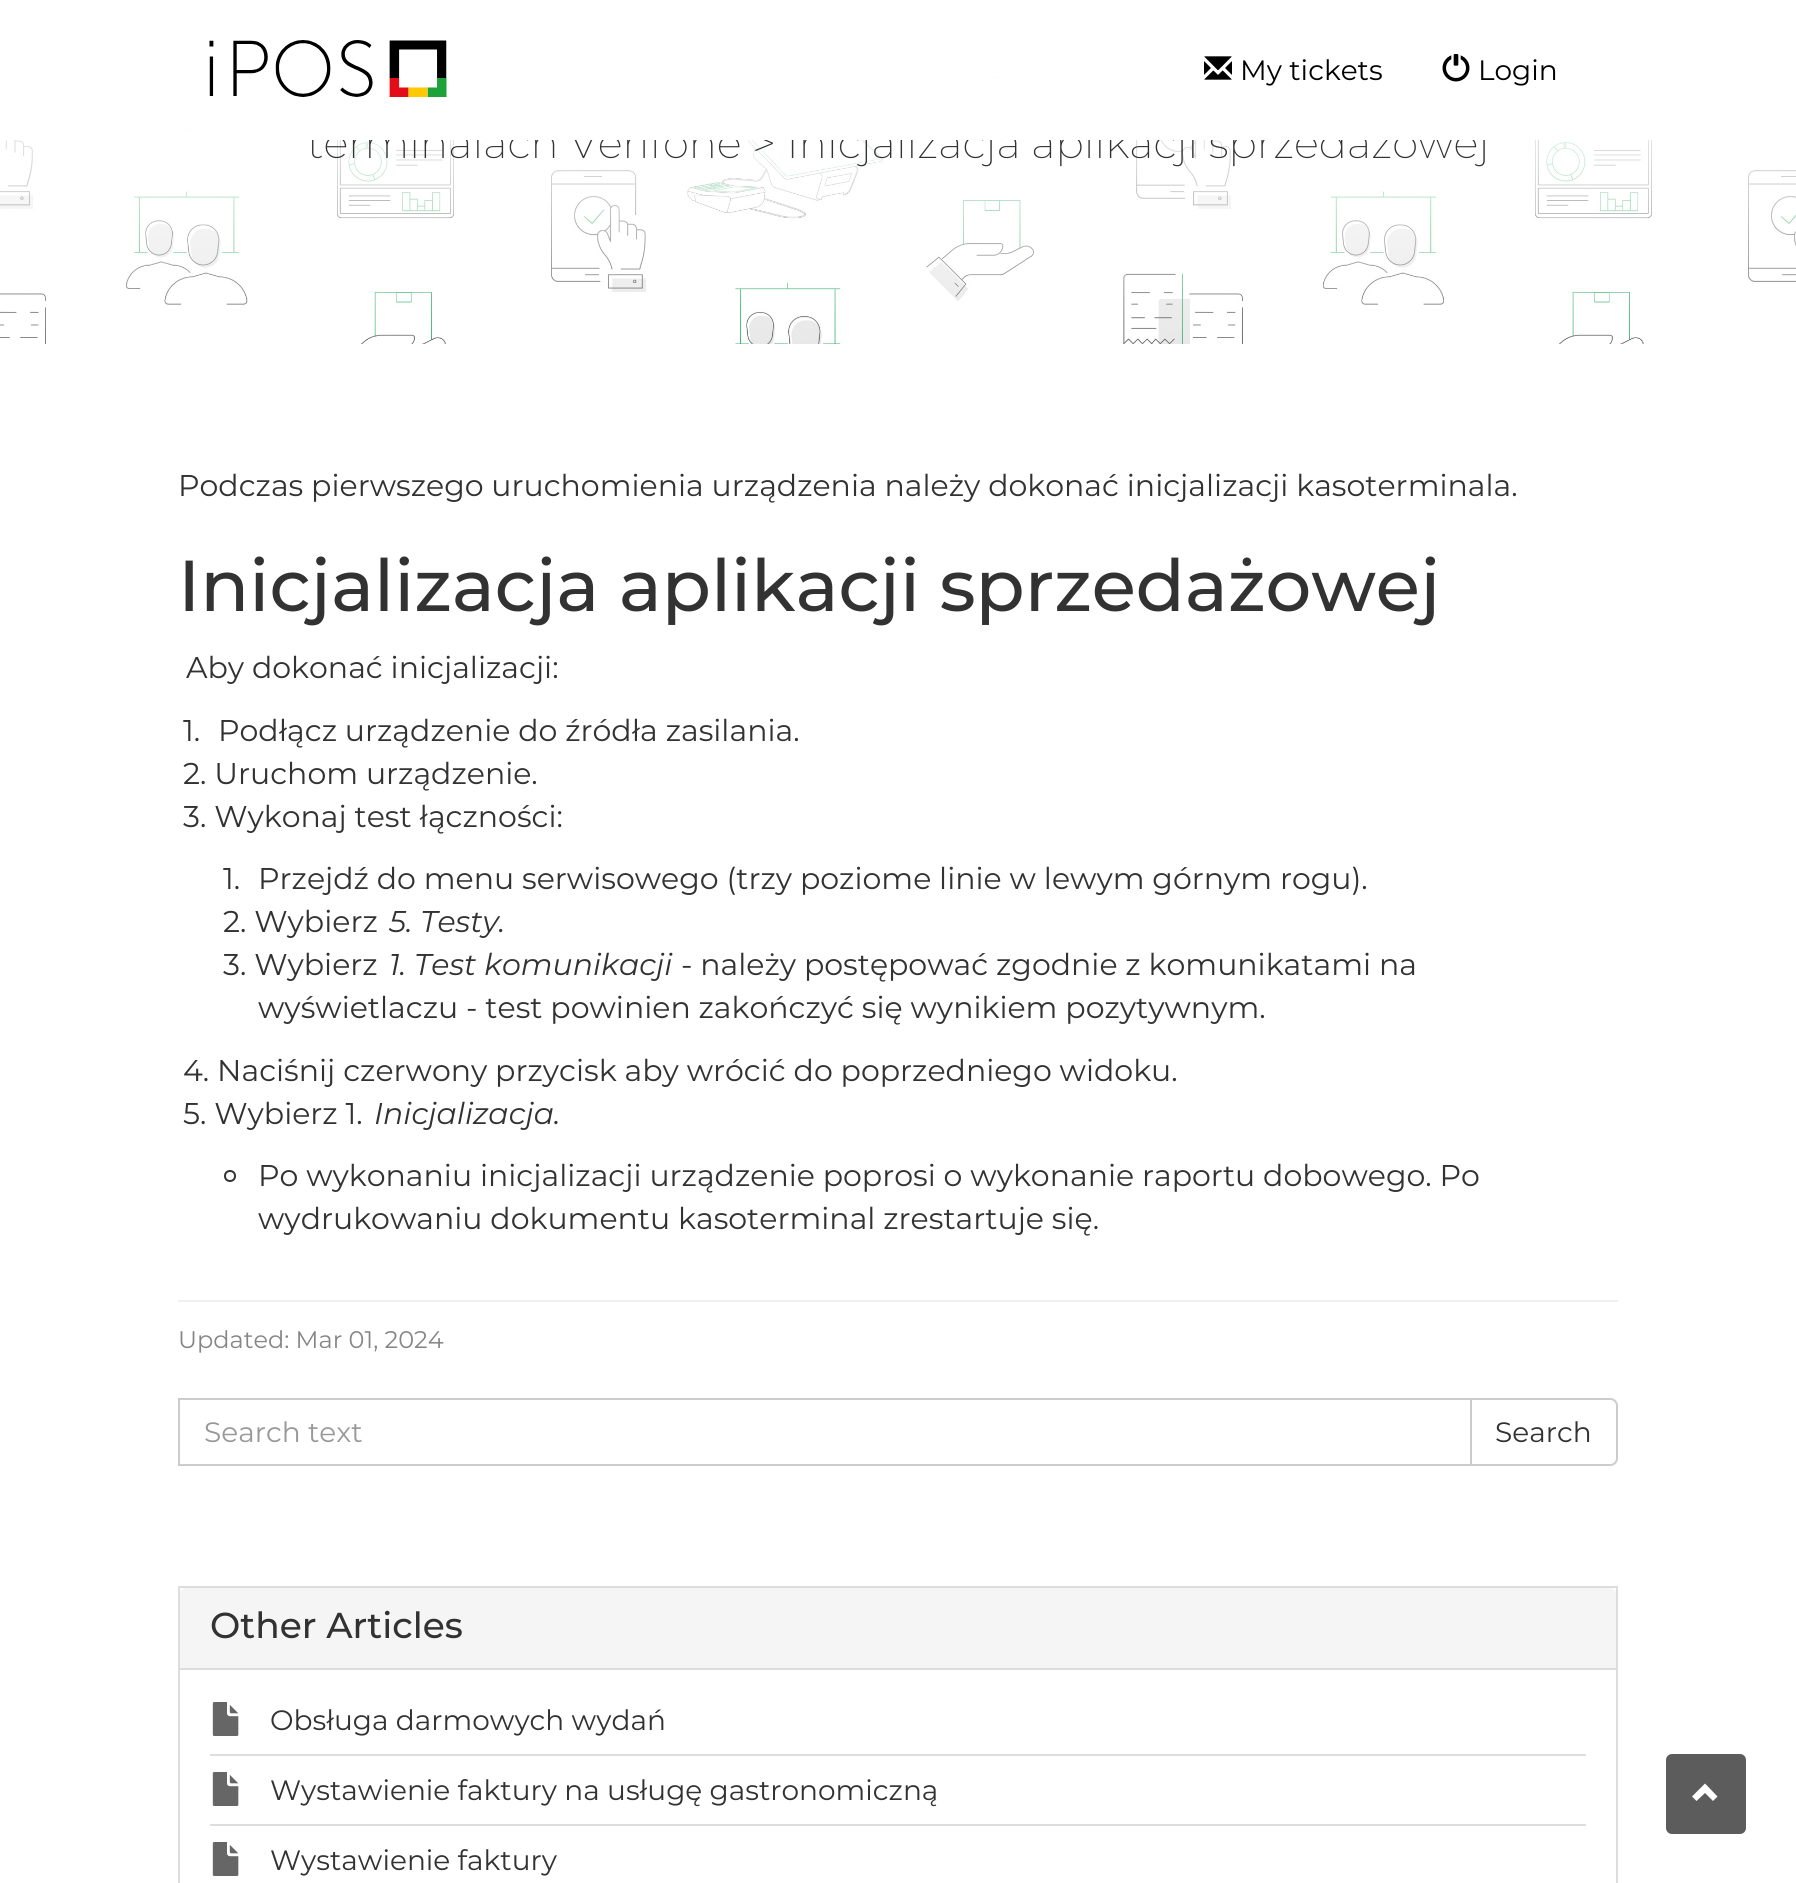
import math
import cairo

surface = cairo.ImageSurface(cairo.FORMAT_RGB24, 1796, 1883)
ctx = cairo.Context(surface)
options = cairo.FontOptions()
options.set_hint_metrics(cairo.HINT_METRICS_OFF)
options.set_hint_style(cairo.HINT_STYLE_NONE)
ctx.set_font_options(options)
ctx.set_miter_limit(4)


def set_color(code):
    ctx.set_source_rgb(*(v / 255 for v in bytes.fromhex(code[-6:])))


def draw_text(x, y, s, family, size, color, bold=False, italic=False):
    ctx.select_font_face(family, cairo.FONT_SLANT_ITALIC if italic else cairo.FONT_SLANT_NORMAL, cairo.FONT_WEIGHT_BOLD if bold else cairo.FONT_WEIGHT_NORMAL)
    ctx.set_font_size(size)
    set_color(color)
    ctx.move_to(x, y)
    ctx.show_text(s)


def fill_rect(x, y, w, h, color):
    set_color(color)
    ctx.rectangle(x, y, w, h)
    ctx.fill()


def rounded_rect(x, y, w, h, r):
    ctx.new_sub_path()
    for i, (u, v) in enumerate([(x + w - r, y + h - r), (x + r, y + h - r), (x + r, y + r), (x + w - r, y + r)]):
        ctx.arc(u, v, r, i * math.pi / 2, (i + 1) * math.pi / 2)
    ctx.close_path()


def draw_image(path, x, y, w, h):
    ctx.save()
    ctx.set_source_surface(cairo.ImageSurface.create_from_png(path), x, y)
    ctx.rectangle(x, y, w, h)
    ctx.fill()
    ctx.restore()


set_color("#ffffff")
ctx.paint()
draw_image("assets/img4.png", 0, 0, 1796, 344)
draw_text(307, 158, "terminalach Verifone > Inicjalizacja aplikacji sprzedażowej", "Montserrat ExtraLight", 42, "#323232")
ctx.set_source_rgba(1, 1, 1, 0.95)
ctx.rectangle(0, 0, 1796, 140)
ctx.fill()
fill_rect(307, 126, 1178, 14, "#ffffff")
draw_image("assets/img1.png", 209, 40, 238, 57)
draw_image("assets/img2.png", 1204, 56, 28, 24)
draw_text(1240, 80, "My tickets", "Montserrat", 28, "#000000")
draw_image("assets/img3.png", 1442, 54, 28, 28)
draw_text(1478, 80, "Login", "Montserrat", 28, "#000000")
draw_text(178, 496, "Podczas pierwszego uruchomienia urządzenia należy dokonać inicjalizacji kasoterminala.", "Montserrat", 30, "#323232")
draw_text(178, 611, "Inicjalizacja aplikacji sprzedażowej", "Montserrat Medium", 72, "#323232")
draw_text(186, 678, "Aby dokonać inicjalizacji:", "Montserrat", 30, "#323232")
draw_text(183, 741, "1.", "Montserrat", 30, "#323232")
draw_text(218, 741, "Podłącz urządzenie do źródła zasilania.", "Montserrat", 30, "#323232")
draw_text(183, 784, "2. Uruchom urządzenie.", "Montserrat", 30, "#323232")
draw_text(183, 827, "3. Wykonaj test łączności:", "Montserrat", 30, "#323232")
draw_text(223, 889, "1.", "Montserrat", 30, "#323232")
draw_text(258, 889, "Przejdź do menu serwisowego (trzy poziome linie w lewym górnym rogu).", "Montserrat", 30, "#323232")
draw_text(223, 932, "2. Wybierz", "Montserrat", 30, "#323232")
draw_text(389, 932, "5. Testy.", "Montserrat", 30, "#323232", italic=True)
draw_text(223, 975, "3. Wybierz", "Montserrat", 30, "#323232")
draw_text(389, 975, "1. Test komunikacji", "Montserrat", 30, "#323232", italic=True)
draw_text(681, 975, "- należy postępować zgodnie z komunikatami na", "Montserrat", 30, "#323232")
draw_text(258, 1018, "wyświetlaczu - test powinien zakończyć się wynikiem pozytywnym.", "Montserrat", 30, "#323232")
draw_text(183, 1081, "4. Naciśnij czerwony przycisk aby wrócić do poprzedniego widoku.", "Montserrat", 30, "#323232")
draw_text(183, 1124, "5. Wybierz 1.", "Montserrat", 30, "#323232")
draw_text(374, 1124, "Inicjalizacja.", "Montserrat", 30, "#323232", italic=True)
ctx.new_path()
ctx.arc(230, 1176, 5, 0, 2 * math.pi)
set_color("#333333")
ctx.stroke()
draw_text(258, 1186, "Po wykonaniu inicjalizacji urządzenie poprosi o wykonanie raportu dobowego. Po", "Montserrat", 30, "#323232")
draw_text(258, 1229, "wydrukowaniu dokumentu kasoterminal zrestartuje się.", "Montserrat", 30, "#323232")
fill_rect(178, 1300, 1440, 2, "#f0f0f0")
draw_text(178, 1348, "Updated: Mar 01, 2024", "Montserrat", 24, "#858585")
ctx.rectangle(179, 1399, 1292, 66)
set_color("#cccccc")
ctx.stroke()
draw_text(204, 1442, "Search text", "Montserrat", 28, "#999999")
set_color("#ffffff")
ctx.new_path()
ctx.move_to(1471, 1399)
ctx.line_to(1610, 1399)
ctx.curve_to(1614, 1399, 1617, 1402, 1617, 1406)
ctx.line_to(1617, 1458)
ctx.curve_to(1617, 1462, 1614, 1465, 1610, 1465)
ctx.line_to(1471, 1465)
ctx.close_path()
ctx.fill_preserve()
set_color("#cccccc")
ctx.stroke()
draw_text(1495, 1442, "Search", "Montserrat", 28, "#323232")
ctx.rectangle(179, 1587, 1438, 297)
set_color("#dddddd")
ctx.stroke()
set_color("#f5f5f5")
ctx.new_path()
ctx.move_to(186, 1588)
ctx.line_to(1610, 1588)
ctx.curve_to(1613.5, 1588, 1616, 1590.5, 1616, 1594)
ctx.line_to(1616, 1670)
ctx.line_to(180, 1670)
ctx.line_to(180, 1594)
ctx.curve_to(180, 1590.5, 182.5, 1588, 186, 1588)
ctx.close_path()
ctx.fill()
fill_rect(180, 1668, 1436, 2, "#dddddd")
draw_text(210, 1638, "Other Articles", "Montserrat Medium", 36, "#323232")
fill_rect(210, 1754, 1376, 2, "#dddddd")
draw_image("assets/img5.png", 212, 1702, 27, 34)
draw_text(270, 1730, "Obsługa darmowych wydań", "Montserrat", 28, "#323232")
fill_rect(210, 1824, 1376, 2, "#dddddd")
draw_image("assets/img5.png", 212, 1772, 27, 34)
draw_text(270, 1800, "Wystawienie faktury na usługę gastronomiczną", "Montserrat", 28, "#323232")
draw_image("assets/img5.png", 212, 1842, 27, 34)
draw_text(270, 1870, "Wystawienie faktury", "Montserrat", 28, "#323232")
set_color("#5c5c5c")
rounded_rect(1666, 1754, 80, 80, 6)
ctx.fill()
set_color("#ffffff")
ctx.new_path()
ctx.move_to(1717.5, 1796.5)
ctx.line_to(1713, 1801)
ctx.line_to(1705, 1793)
ctx.line_to(1696.5, 1801)
ctx.line_to(1692, 1796.5)
ctx.line_to(1705, 1783.5)
ctx.close_path()
ctx.fill()
surface.write_to_png("output.png")
